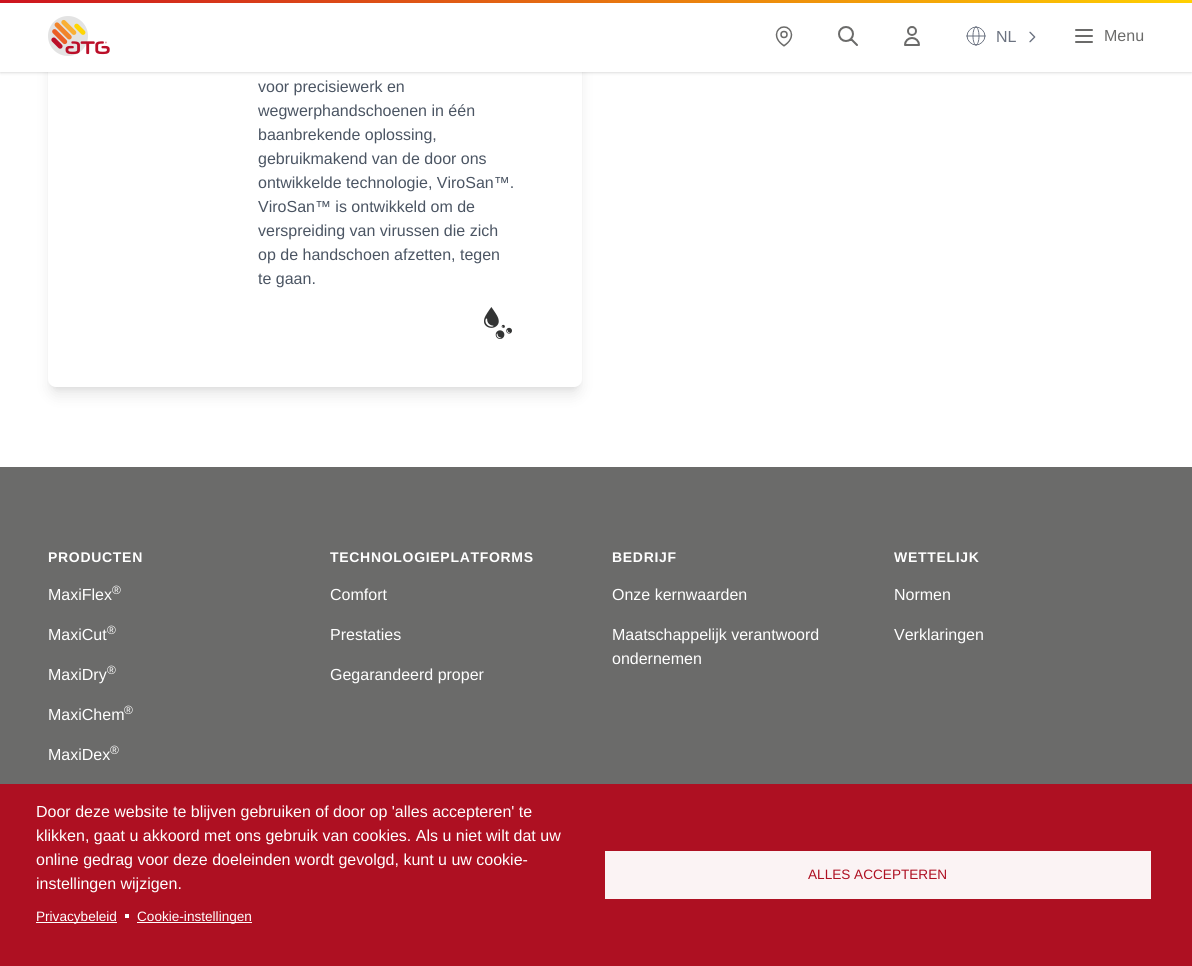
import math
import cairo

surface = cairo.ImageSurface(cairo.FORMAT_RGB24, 1192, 966)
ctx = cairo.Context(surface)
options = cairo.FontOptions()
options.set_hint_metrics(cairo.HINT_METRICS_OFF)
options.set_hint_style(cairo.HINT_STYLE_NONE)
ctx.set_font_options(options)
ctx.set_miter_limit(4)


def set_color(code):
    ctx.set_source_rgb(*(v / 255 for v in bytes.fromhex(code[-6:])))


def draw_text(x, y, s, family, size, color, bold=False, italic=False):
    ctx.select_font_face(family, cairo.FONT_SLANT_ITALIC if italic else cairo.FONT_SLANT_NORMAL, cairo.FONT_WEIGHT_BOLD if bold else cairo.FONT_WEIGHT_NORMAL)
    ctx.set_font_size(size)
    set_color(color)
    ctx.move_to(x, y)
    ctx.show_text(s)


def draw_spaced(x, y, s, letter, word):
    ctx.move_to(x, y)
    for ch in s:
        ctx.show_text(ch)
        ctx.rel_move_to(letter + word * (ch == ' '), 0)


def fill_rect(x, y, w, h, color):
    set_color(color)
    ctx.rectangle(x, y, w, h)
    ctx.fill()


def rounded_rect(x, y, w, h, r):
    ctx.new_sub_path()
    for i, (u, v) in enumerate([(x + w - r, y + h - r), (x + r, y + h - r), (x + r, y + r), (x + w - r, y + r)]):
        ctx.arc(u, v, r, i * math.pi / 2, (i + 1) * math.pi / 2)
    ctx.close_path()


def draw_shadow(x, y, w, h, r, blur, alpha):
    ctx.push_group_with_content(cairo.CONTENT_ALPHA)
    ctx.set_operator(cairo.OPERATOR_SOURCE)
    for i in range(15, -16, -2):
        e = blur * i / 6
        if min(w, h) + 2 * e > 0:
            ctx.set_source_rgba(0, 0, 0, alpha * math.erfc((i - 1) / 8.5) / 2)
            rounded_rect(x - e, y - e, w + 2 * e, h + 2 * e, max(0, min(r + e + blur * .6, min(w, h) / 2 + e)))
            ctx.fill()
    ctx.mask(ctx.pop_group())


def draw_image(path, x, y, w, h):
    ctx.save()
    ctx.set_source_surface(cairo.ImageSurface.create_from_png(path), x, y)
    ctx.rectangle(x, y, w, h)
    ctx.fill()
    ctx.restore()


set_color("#ffffff")
ctx.paint()
set_color("#000000")
draw_shadow(52, -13, 526, 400, 4, 3, 0.1)
draw_shadow(51, -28, 528, 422, 5, 7.5, 0.1)
set_color("#ffffff")
rounded_rect(48, -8, 534, 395, 8)
ctx.fill()
set_color("#000000")
draw_shadow(1, 2, 1190, 70, 0, 1, 0.1)
draw_shadow(0, 1, 1192, 72, 0, 1.5, 0.1)
fill_rect(0, 3, 1192, 69, "#ffffff")
gradient = cairo.LinearGradient(0, 1.5, 1192, 1.5)
gradient.add_color_stop_rgba(0, 0.804, 0.075, 0.122, 1)
gradient.add_color_stop_rgba(1, 1, 0.816, 0.004, 1)
ctx.set_source(gradient)
ctx.rectangle(0, 0, 1192, 3)
ctx.fill()
draw_image("assets/img1.png", 48, 16, 62, 40)
draw_image("assets/img2.png", 775, 26, 18, 21)
draw_image("assets/img3.png", 838, 26, 20, 20)
draw_image("assets/img4.png", 904, 26, 16, 20)
draw_image("assets/img5.png", 966, 26, 20, 20)
draw_text(996, 42, "NL", "Liberation Sans", 16, "#6b7280")
draw_image("assets/img6.png", 1029, 31, 7, 12)
ctx.new_path()
ctx.move_to(1076, 30)
ctx.line_to(1092, 30)
ctx.move_to(1076, 36)
ctx.line_to(1092, 36)
ctx.move_to(1076, 42)
ctx.line_to(1092, 42)
set_color("#6b6b6a")
ctx.set_line_cap(cairo.LINE_CAP_ROUND)
ctx.set_line_join(cairo.LINE_JOIN_ROUND)
ctx.stroke()
draw_text(1104, 41, "Menu", "Liberation Sans", 16, "#6b6b6a")
draw_text(258, 92, "voor precisiewerk en", "Liberation Sans", 16, "#4b5563")
draw_text(258, 116, "wegwerphandschoenen in één", "Liberation Sans", 16, "#4b5563")
draw_text(258, 140, "baanbrekende oplossing,", "Liberation Sans", 16, "#4b5563")
draw_text(258, 164, "gebruikmakend van de door ons", "Liberation Sans", 16, "#4b5563")
draw_text(258, 188, "ontwikkelde technologie, ViroSan™.", "Liberation Sans", 16, "#4b5563")
draw_text(258, 212, "ViroSan™ is ontwikkeld om de", "Liberation Sans", 16, "#4b5563")
draw_text(258, 236, "verspreiding van virussen die zich", "Liberation Sans", 16, "#4b5563")
draw_text(258, 260, "op de handschoen afzetten, tegen", "Liberation Sans", 16, "#4b5563")
draw_text(258, 284, "te gaan.", "Liberation Sans", 16, "#4b5563")
draw_image("assets/img7.png", 484, 307, 28, 32)
fill_rect(0, 467, 1192, 317, "#6b6b6a")
ctx.select_font_face("Liberation Sans", cairo.FONT_SLANT_NORMAL, cairo.FONT_WEIGHT_BOLD)
ctx.set_font_size(14)
set_color("#ffffff")
draw_spaced(48, 562, "PRODUCTEN", 0.7, 0)
draw_text(48, 600, "MaxiFlex", "Liberation Sans", 16, "#ffffff")
draw_text(112, 594, "®", "Liberation Sans", 12, "#ffffff")
draw_text(48, 640, "MaxiCut", "Liberation Sans", 16, "#ffffff")
draw_text(107, 634, "®", "Liberation Sans", 12, "#ffffff")
draw_text(48, 680, "MaxiDry", "Liberation Sans", 16, "#ffffff")
draw_text(107, 674, "®", "Liberation Sans", 12, "#ffffff")
draw_text(48, 720, "MaxiChem", "Liberation Sans", 16, "#ffffff")
draw_text(124, 714, "®", "Liberation Sans", 12, "#ffffff")
draw_text(48, 760, "MaxiDex", "Liberation Sans", 16, "#ffffff")
draw_text(110, 754, "®", "Liberation Sans", 12, "#ffffff")
ctx.select_font_face("Liberation Sans", cairo.FONT_SLANT_NORMAL, cairo.FONT_WEIGHT_BOLD)
ctx.set_font_size(14)
draw_spaced(330, 562, "TECHNOLOGIEPLATFORMS", 0.7, 0)
draw_text(330, 600, "Comfort", "Liberation Sans", 16, "#ffffff")
draw_text(330, 640, "Prestaties", "Liberation Sans", 16, "#ffffff")
draw_text(330, 680, "Gegarandeerd proper", "Liberation Sans", 16, "#ffffff")
ctx.select_font_face("Liberation Sans", cairo.FONT_SLANT_NORMAL, cairo.FONT_WEIGHT_BOLD)
ctx.set_font_size(14)
draw_spaced(612, 562, "BEDRIJF", 0.7, 0)
draw_text(612, 600, "Onze kernwaarden", "Liberation Sans", 16, "#ffffff")
draw_text(612, 640, "Maatschappelijk verantwoord", "Liberation Sans", 16, "#ffffff")
draw_text(612, 664, "ondernemen", "Liberation Sans", 16, "#ffffff")
ctx.select_font_face("Liberation Sans", cairo.FONT_SLANT_NORMAL, cairo.FONT_WEIGHT_BOLD)
ctx.set_font_size(14)
draw_spaced(894, 562, "WETTELIJK", 0.7, 0)
draw_text(894, 600, "Normen", "Liberation Sans", 16, "#ffffff")
draw_text(894, 640, "Verklaringen", "Liberation Sans", 16, "#ffffff")
fill_rect(0, 784, 1192, 182, "#ae1022")
draw_text(36, 817, "Door deze website te blijven gebruiken of door op 'alles accepteren' te", "Liberation Sans", 16, "#ffffff")
draw_text(36, 841, "klikken, gaat u akkoord met ons gebruik van cookies. Als u niet wilt dat uw", "Liberation Sans", 16, "#ffffff")
draw_text(36, 865, "online gedrag voor deze doeleinden wordt gevolgd, kunt u uw cookie-", "Liberation Sans", 16, "#ffffff")
draw_text(36, 889, "instellingen wijzigen.", "Liberation Sans", 16, "#ffffff")
fill_rect(36, 922, 81, 1, "#ffffff")
draw_text(36, 921, "Privacybeleid", "Liberation Sans", 13.6, "#ffffff")
fill_rect(125, 914, 4, 4, "#ffffff")
fill_rect(137, 922, 115, 1, "#ffffff")
draw_text(137, 921, "Cookie-instellingen", "Liberation Sans", 13.6, "#ffffff")
fill_rect(605, 851, 546, 48, "#fbf3f4")
draw_text(808, 879, "ALLES ACCEPTEREN", "Liberation Sans", 13.6, "#ae1022")
surface.write_to_png("output.png")
